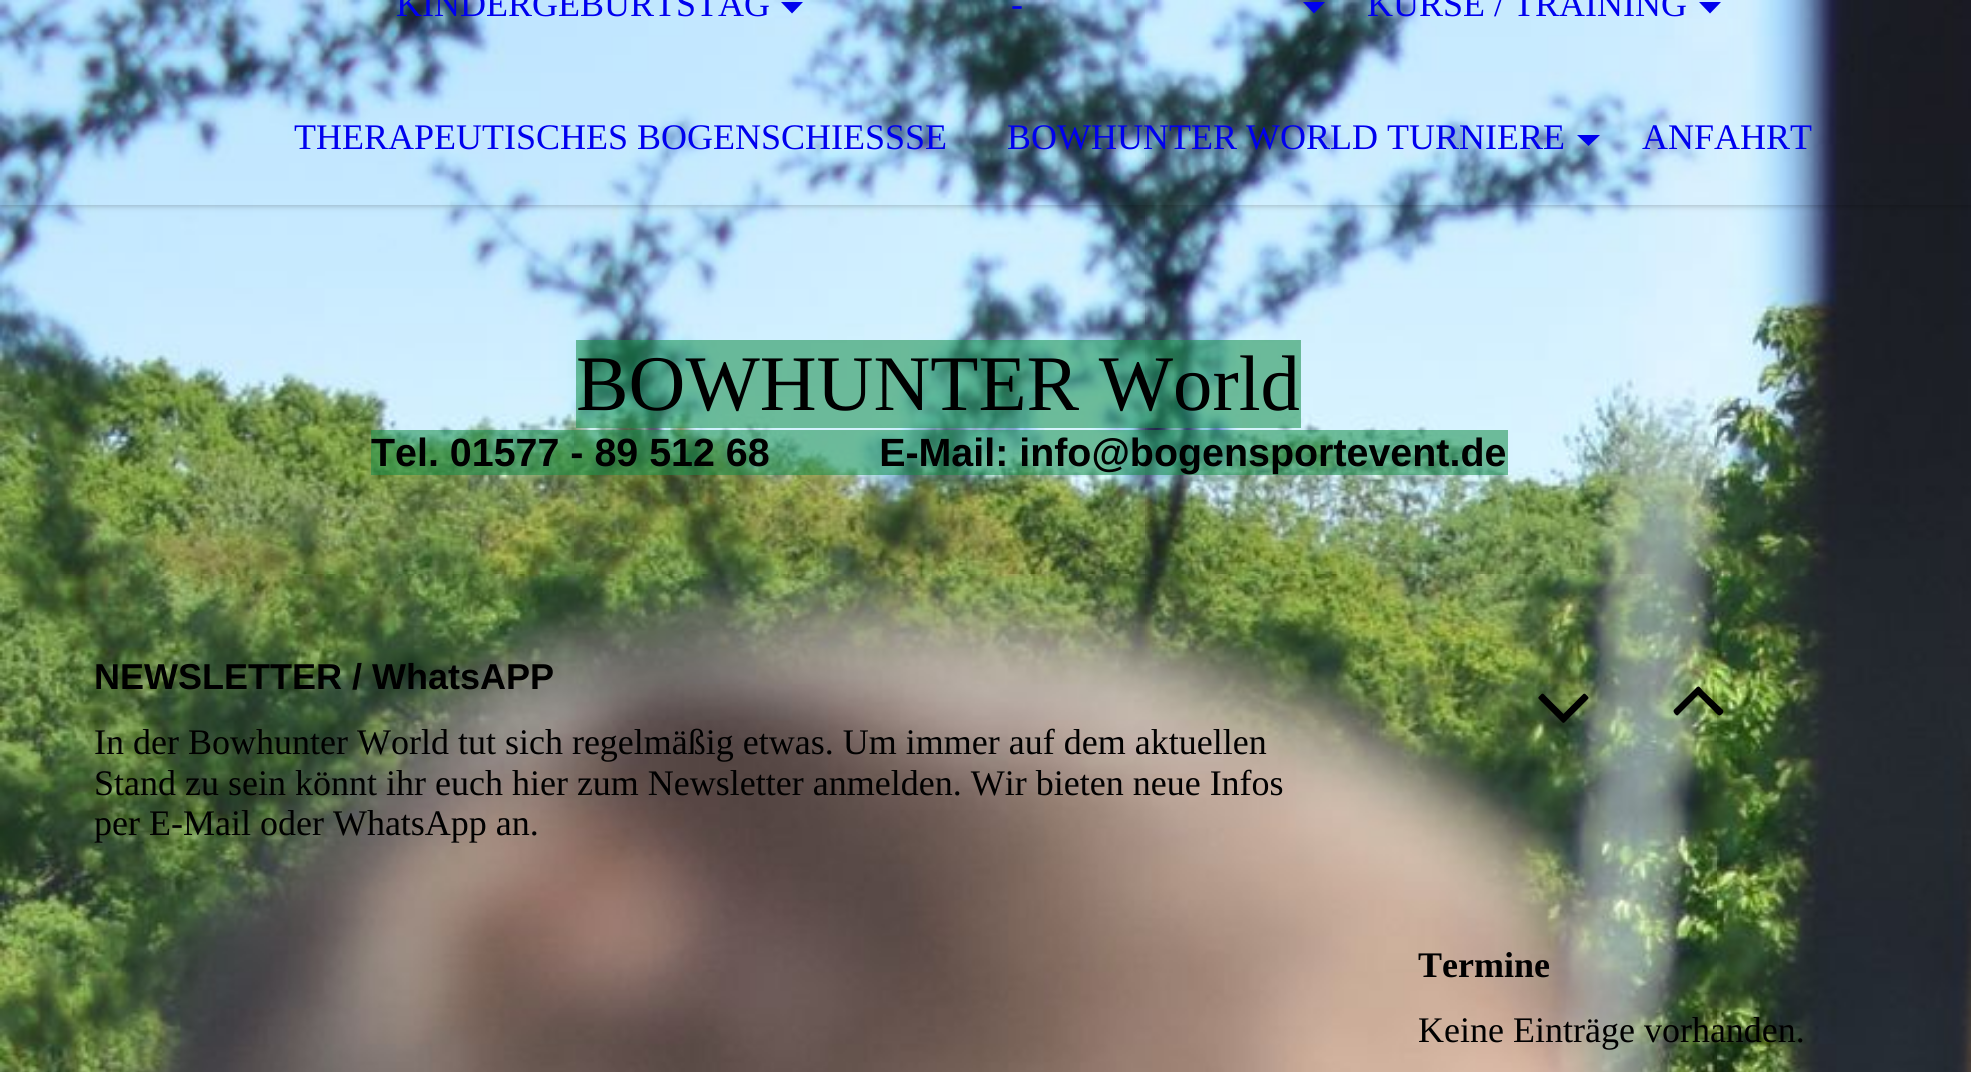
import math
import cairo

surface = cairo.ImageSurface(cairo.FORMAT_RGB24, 1971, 1072)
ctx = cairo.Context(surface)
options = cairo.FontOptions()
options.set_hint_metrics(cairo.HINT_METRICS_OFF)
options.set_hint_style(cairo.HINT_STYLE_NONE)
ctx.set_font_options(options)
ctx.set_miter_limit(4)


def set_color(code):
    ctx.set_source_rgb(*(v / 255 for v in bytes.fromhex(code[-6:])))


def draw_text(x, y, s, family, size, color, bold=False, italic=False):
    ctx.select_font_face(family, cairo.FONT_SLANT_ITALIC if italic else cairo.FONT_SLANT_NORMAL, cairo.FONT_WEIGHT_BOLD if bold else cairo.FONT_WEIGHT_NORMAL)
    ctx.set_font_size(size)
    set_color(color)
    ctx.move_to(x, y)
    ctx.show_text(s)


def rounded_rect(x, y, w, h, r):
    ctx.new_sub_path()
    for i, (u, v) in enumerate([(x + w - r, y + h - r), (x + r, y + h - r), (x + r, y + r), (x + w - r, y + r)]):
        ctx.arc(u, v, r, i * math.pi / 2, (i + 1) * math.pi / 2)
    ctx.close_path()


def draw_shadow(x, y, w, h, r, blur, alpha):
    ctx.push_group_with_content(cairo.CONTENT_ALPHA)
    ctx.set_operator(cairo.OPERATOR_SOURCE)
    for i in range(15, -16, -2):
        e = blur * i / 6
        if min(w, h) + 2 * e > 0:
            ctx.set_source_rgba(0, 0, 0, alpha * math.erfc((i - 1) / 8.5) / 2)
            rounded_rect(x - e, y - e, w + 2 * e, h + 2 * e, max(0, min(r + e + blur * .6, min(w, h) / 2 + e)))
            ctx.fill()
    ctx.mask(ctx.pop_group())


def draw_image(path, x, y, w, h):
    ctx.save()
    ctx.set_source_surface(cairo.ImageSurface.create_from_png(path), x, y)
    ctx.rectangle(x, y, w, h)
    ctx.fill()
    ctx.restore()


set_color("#ffffff")
ctx.paint()
draw_image("assets/img1.png", 0, 0, 1971, 1072)
ctx.save()
ctx.set_fill_rule(cairo.FILL_RULE_EVEN_ODD)
ctx.new_path()
ctx.move_to(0, 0)
ctx.line_to(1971, 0)
ctx.line_to(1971, 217)
ctx.line_to(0, 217)
ctx.close_path()
ctx.move_to(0, -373)
ctx.line_to(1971, -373)
ctx.line_to(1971, 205)
ctx.line_to(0, 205)
ctx.close_path()
ctx.clip()
set_color("#000000")
draw_shadow(0, -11, 1971, 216, 0, 3.5, 0.3)
ctx.restore()
draw_text(396, 16, "KINDERGEBURTSTAG", "Liberation Serif", 36, "#0000ee")
ctx.new_path()
ctx.move_to(781, 2)
ctx.line_to(803, 2)
ctx.line_to(792, 13.5)
ctx.close_path()
ctx.fill()
draw_text(1011, 16, "-", "Liberation Serif", 36, "#0000ee")
ctx.new_path()
ctx.move_to(1303, 2)
ctx.line_to(1325, 2)
ctx.line_to(1314, 13.5)
ctx.close_path()
ctx.fill()
draw_text(1367, 16, "KURSE / TRAINING", "Liberation Serif", 36, "#0000ee")
ctx.new_path()
ctx.move_to(1699, 2)
ctx.line_to(1721, 2)
ctx.line_to(1710, 13.5)
ctx.close_path()
ctx.fill()
draw_text(294, 149, "THERAPEUTISCHES BOGENSCHIESSSE", "Liberation Serif", 36, "#0000ee")
draw_text(1007, 149, "BOWHUNTER WORLD TURNIERE", "Liberation Serif", 36, "#0000ee")
ctx.new_path()
ctx.move_to(1577, 135)
ctx.line_to(1600, 135)
ctx.line_to(1588.5, 146)
ctx.close_path()
ctx.fill()
draw_text(1642, 149, "ANFAHRT", "Liberation Serif", 36, "#0000ee")
ctx.set_source_rgba(0.094, 0.565, 0.294, 0.56)
ctx.rectangle(576, 340, 725, 88)
ctx.fill()
draw_text(576, 410, "BOWHUNTER World", "Liberation Serif", 78.75, "#000000")
ctx.set_source_rgba(0.094, 0.565, 0.294, 0.56)
ctx.rectangle(371, 430, 1137, 45)
ctx.fill()
draw_text(371, 466, "Tel. 01577 - 89 512 68          E-Mail: info@bogensportevent.de", "Liberation Sans", 39.4, "#000000", bold=True)
draw_text(94, 689, "NEWSLETTER / WhatsAPP", "Liberation Sans", 36, "#000000", bold=True)
draw_text(94, 754, "In der Bowhunter World tut sich regelmäßig etwas. Um immer auf dem aktuellen", "Liberation Serif", 36, "#000000")
draw_text(94, 795, "Stand zu sein könnt ihr euch hier zum Newsletter anmelden. Wir bieten neue Infos", "Liberation Serif", 36, "#000000")
draw_text(94, 835, "per E-Mail oder WhatsApp an.", "Liberation Serif", 36, "#000000")
draw_image("assets/img2.png", 1538, 693, 51, 30)
ctx.new_path()
ctx.move_to(1723, 710)
ctx.curve_to(1724, 712, 1723, 713, 1722, 714)
ctx.curve_to(1719, 717, 1718, 715, 1715, 712)
ctx.line_to(1698, 695)
ctx.line_to(1678, 715)
ctx.curve_to(1677, 716, 1676, 715, 1675, 714)
ctx.curve_to(1672, 710, 1674, 710, 1678, 706)
ctx.line_to(1693, 691)
ctx.curve_to(1699, 685, 1698, 685, 1703, 691)
ctx.close_path()
ctx.fill()
draw_text(1418, 977, "Termine", "Liberation Serif", 36, "#000000", bold=True)
draw_text(1418, 1042, "Keine Einträge vorhanden.", "Liberation Serif", 36, "#000000")
surface.write_to_png("output.png")
